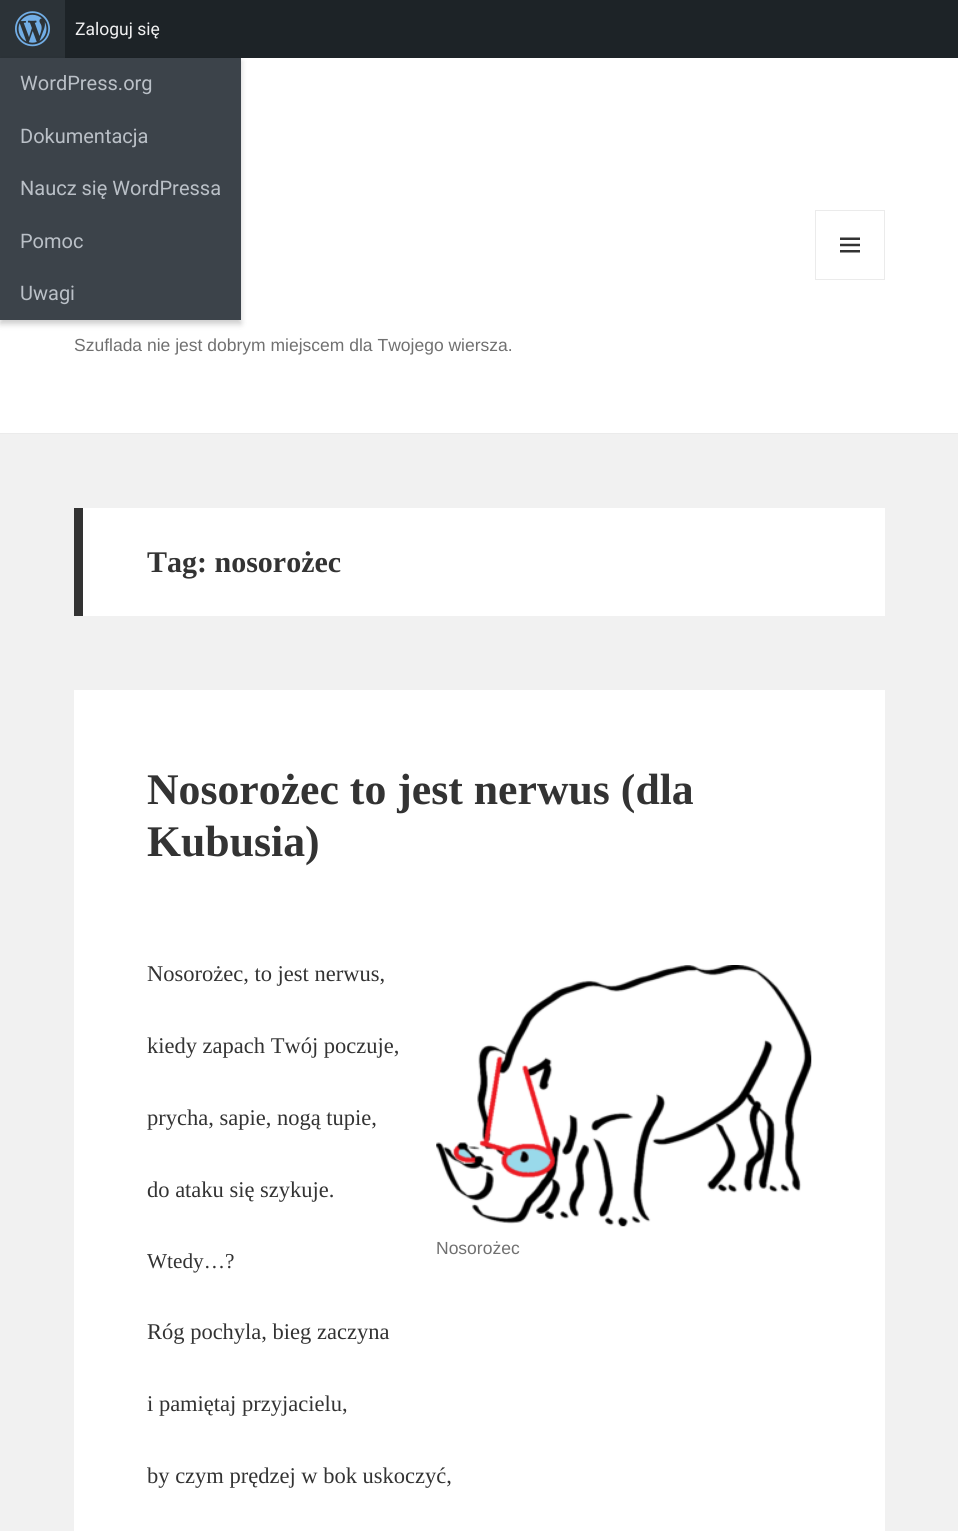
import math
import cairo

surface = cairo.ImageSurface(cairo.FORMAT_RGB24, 958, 1531)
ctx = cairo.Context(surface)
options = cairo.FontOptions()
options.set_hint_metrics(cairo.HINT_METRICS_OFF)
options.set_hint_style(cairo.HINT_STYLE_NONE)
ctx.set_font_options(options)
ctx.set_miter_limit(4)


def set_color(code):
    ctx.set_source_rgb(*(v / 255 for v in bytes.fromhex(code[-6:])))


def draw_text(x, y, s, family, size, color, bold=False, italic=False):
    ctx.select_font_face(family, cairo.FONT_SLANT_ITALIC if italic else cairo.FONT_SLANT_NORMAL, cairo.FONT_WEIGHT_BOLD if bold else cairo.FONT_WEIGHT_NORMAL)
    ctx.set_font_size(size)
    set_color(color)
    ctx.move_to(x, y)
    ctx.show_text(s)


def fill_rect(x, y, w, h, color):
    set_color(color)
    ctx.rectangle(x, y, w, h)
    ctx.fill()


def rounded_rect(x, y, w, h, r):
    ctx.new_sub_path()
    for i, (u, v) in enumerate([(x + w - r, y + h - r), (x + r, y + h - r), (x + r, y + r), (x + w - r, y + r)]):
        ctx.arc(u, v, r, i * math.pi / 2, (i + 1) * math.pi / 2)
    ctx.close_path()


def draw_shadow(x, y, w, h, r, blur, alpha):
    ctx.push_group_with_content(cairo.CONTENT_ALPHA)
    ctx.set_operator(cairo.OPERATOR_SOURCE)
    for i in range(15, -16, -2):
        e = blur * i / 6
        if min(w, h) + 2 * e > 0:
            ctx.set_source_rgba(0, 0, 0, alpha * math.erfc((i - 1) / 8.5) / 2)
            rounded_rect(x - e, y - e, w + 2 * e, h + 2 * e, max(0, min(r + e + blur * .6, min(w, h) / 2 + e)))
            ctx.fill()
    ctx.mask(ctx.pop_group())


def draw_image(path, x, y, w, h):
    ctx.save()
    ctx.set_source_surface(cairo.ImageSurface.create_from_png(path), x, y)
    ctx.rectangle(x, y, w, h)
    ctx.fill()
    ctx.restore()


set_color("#f1f1f1")
ctx.paint()
fill_rect(65, 0, 893, 58, "#1d2327")
draw_text(75, 35, "Zaloguj się", "Roboto", 17.5, "#f0f0f1")
fill_rect(0, 0, 65, 58, "#2c3338")
draw_image("assets/img1.png", 15, 11, 35, 36)
fill_rect(0, 58, 958, 375, "#ffffff")
set_color("#000000")
draw_shadow(0, 61, 241, 263, 0, 3, 0.2)
fill_rect(0, 58, 241, 262, "#3c434a")
draw_text(20, 90, "WordPress.org", "Roboto", 20, "#bac0c7")
draw_text(20, 143, "Dokumentacja", "Roboto", 20, "#bac0c7")
draw_text(20, 195, "Naucz się WordPressa", "Roboto", 20, "#bac0c7")
draw_text(20, 248, "Pomoc", "Roboto", 20, "#bac0c7")
draw_text(20, 300, "Uwagi", "Roboto", 20, "#bac0c7")
fill_rect(0, 433, 958, 1, "#ebebeb")
ctx.rectangle(815.5, 210.5, 69, 69)
ctx.set_line_width(1)
ctx.stroke()
draw_image("assets/img2.png", 840, 237, 20, 16)
draw_text(74, 351, "Szuflada nie jest dobrym miejscem dla Twojego wiersza.", "Liberation Sans", 17.5, "#707070")
fill_rect(83, 508, 802, 108, "#ffffff")
fill_rect(74, 508, 9, 108, "#333333")
draw_text(147, 572, "Tag: nosorożec", "Liberation Serif", 30, "#333333", bold=True)
fill_rect(74, 690, 811, 841, "#ffffff")
draw_text(147, 804, "Nosorożec to jest nerwus (dla", "Liberation Serif", 43.75, "#333333", bold=True)
draw_text(147, 856, "Kubusia)", "Liberation Serif", 43.75, "#333333", bold=True)
draw_text(147, 981, "Nosorożec, to jest nerwus,", "Liberation Serif", 22.5, "#333333")
draw_text(147, 1053, "kiedy zapach Twój poczuje,", "Liberation Serif", 22.5, "#333333")
draw_text(147, 1125, "prycha, sapie, nogą tupie,", "Liberation Serif", 22.5, "#333333")
draw_text(147, 1197, "do ataku się szykuje.", "Liberation Serif", 22.5, "#333333")
draw_image("assets/img3.png", 436, 965, 376, 262)
draw_text(436, 1254, "Nosorożec", "Liberation Sans", 17.5, "#707070")
draw_text(147, 1268, "Wtedy…?", "Liberation Serif", 21.25, "#333333")
draw_text(147, 1339, "Róg pochyla, bieg zaczyna", "Liberation Serif", 22.5, "#333333")
draw_text(147, 1411, "i pamiętaj przyjacielu,", "Liberation Serif", 22.5, "#333333")
draw_text(147, 1483, "by czym prędzej w bok uskoczyć,", "Liberation Serif", 22.5, "#333333")
surface.write_to_png("output.png")
